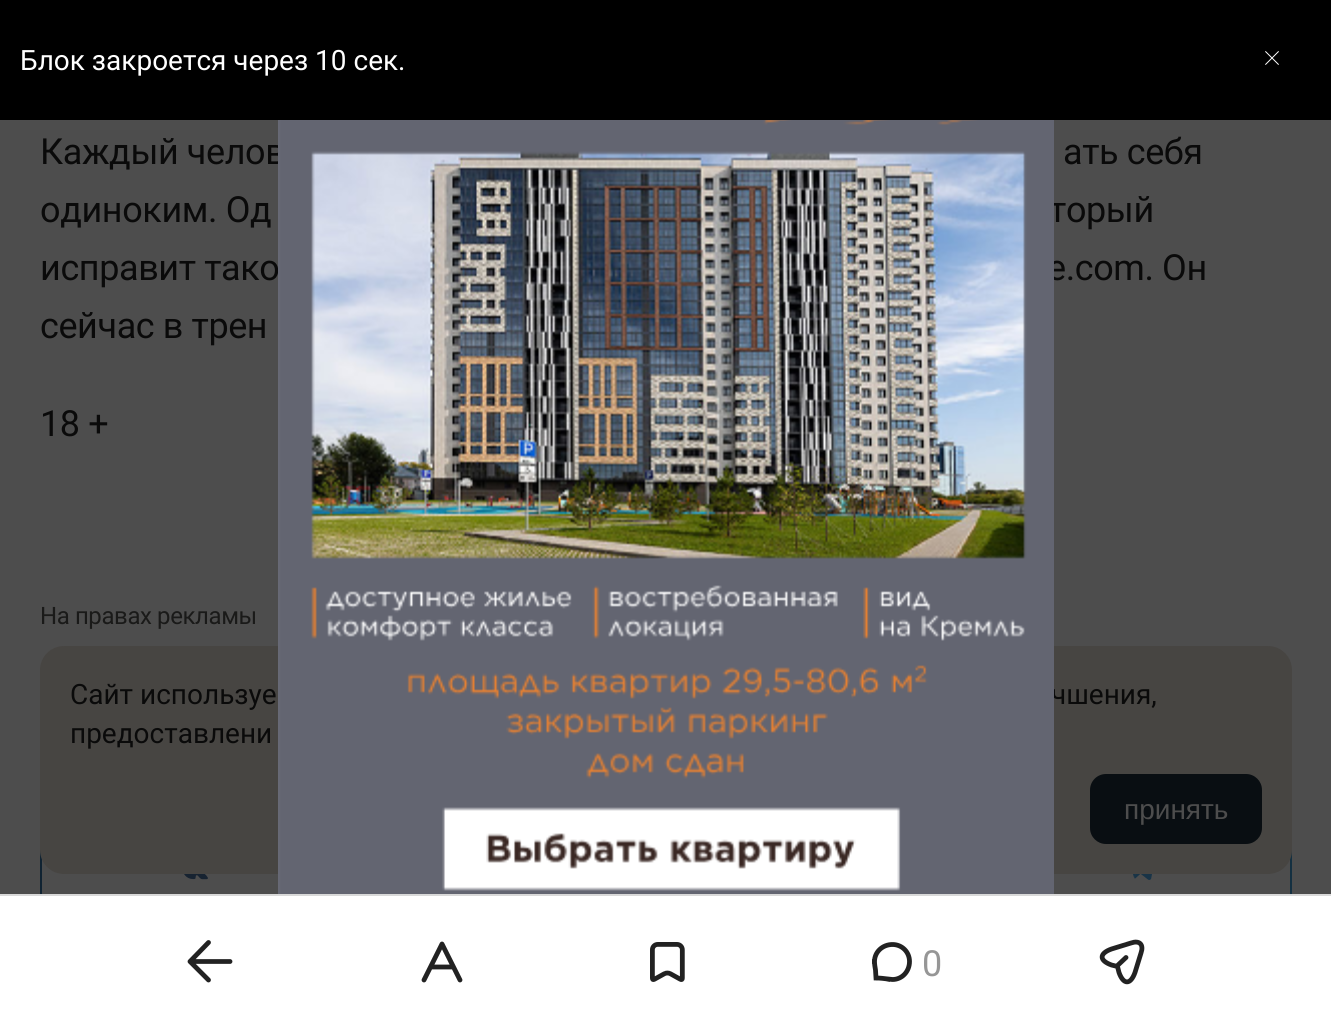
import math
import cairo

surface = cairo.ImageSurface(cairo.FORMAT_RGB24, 1331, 1034)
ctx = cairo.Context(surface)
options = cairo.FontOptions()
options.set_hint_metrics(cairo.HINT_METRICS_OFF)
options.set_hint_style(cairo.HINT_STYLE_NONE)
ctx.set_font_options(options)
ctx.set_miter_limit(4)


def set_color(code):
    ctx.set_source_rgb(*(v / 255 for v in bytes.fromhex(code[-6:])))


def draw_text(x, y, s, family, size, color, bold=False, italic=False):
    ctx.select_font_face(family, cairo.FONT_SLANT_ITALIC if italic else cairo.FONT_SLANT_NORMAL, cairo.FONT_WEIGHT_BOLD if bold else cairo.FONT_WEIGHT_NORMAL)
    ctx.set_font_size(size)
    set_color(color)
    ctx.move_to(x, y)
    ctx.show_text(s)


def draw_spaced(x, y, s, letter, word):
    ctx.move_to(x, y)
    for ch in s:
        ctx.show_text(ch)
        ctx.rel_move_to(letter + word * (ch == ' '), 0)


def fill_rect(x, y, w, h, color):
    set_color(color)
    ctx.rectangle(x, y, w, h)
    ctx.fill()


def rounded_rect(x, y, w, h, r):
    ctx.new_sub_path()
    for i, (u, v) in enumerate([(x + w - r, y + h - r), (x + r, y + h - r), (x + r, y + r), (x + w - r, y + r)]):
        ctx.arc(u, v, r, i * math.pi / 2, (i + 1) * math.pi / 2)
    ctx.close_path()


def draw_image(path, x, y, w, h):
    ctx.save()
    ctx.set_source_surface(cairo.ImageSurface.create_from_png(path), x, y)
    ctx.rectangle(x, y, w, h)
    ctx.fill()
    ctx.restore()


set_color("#4d4d4d")
ctx.paint()
fill_rect(0, 0, 1331, 120, "#000000")
draw_text(20, 70, "Блок закроется через 10 сек.", "Roboto", 28, "#ffffff")
draw_image("assets/img1.png", 1265, 51, 14, 14)
ctx.set_font_size(36)
set_color("#0a0a0a")
draw_spaced(40, 164, "Каждый челов", -0.4, 0)
draw_spaced(1049, 222, "торый", -0.4, 0)
draw_spaced(40, 280, "исправит тако", -0.4, 0)
draw_spaced(1047, 280, "e.com. Он", -0.4, 0)
rounded_rect(41, 651, 748, 118, 23)
set_color("#414141")
ctx.stroke()
ctx.rectangle(41, 831, 304, 68)
set_color("#102332")
ctx.stroke()
ctx.rectangle(987, 831, 304, 68)
set_color("#143041")
ctx.stroke()
set_color("#474542")
rounded_rect(40, 646, 1252, 228, 24)
ctx.fill()
draw_text(1051, 704, "чшения,", "Roboto", 28, "#0a0a0a")
draw_image("assets/img2.png", 278, 120, 776, 774)
ctx.set_font_size(36)
draw_spaced(1063, 164, "ать себя", -0.4, 0)
draw_spaced(40, 222, "одиноким. Од", -0.4, 0)
draw_spaced(40, 338, "сейчас в трен", -0.4, 0)
draw_spaced(40, 436, "18 +", -0.4, 0)
ctx.set_font_size(24)
set_color("#1a1a19")
draw_spaced(40, 624, "На правах рекламы", -0.4, 0)
draw_image("assets/img3.png", 184, 874, 24, 6)
draw_image("assets/img4.png", 1133, 874, 19, 6)
draw_text(70, 704, "Сайт используе", "Roboto", 28, "#0a0a0a")
draw_text(70, 743, "предоставлени", "Roboto", 28, "#0a0a0a")
set_color("#090e12")
rounded_rect(1090, 774, 172, 70, 16)
ctx.fill()
draw_text(1124, 819, "принять", "Liberation Sans", 28, "#4d4d4d")
fill_rect(0, 896, 1331, 138, "#ffffff")
fill_rect(0, 894, 1331, 2, "#d9d9d9")
ctx.new_path()
ctx.move_to(208.5, 942.5)
ctx.line_to(190, 961.5)
ctx.line_to(208.5, 980)
ctx.move_to(230, 961.5)
ctx.line_to(190.5, 961.5)
set_color("#222222")
ctx.set_line_width(4.8)
ctx.set_line_cap(cairo.LINE_CAP_ROUND)
ctx.set_line_join(cairo.LINE_JOIN_ROUND)
ctx.stroke()
ctx.new_path()
ctx.move_to(424, 980)
ctx.line_to(442, 944)
ctx.line_to(460, 980)
ctx.move_to(431, 967)
ctx.line_to(453, 967)
ctx.stroke()
draw_image("assets/img5.png", 650, 942, 35, 40)
ctx.new_path()
ctx.move_to(874.5, 961.5)
ctx.curve_to(874.5, 952, 882.5, 944.5, 892.5, 944.5)
ctx.curve_to(902, 944.5, 909.5, 952, 909.5, 961.5)
ctx.curve_to(909.5, 971.5, 902, 979.5, 892.5, 979.5)
ctx.line_to(888, 979)
ctx.line_to(887.5, 981.5)
ctx.line_to(888, 979)
ctx.curve_to(884, 978.5, 880, 978, 876, 978)
ctx.line_to(875.5, 970)
ctx.curve_to(875, 967, 874.5, 964.5, 874.5, 961.5)
ctx.close_path()
ctx.move_to(874.5, 961.5)
ctx.line_to(872, 961.5)
ctx.close_path()
ctx.set_line_cap(cairo.LINE_CAP_BUTT)
ctx.set_line_join(cairo.LINE_JOIN_MITER)
ctx.stroke()
draw_text(922, 976, "0", "Roboto", 36, "#969696")
ctx.new_path()
ctx.move_to(1117.5, 965.5)
ctx.line_to(1126, 957.5)
ctx.move_to(1111.5, 949)
ctx.line_to(1131, 943)
ctx.curve_to(1139.5, 940, 1144, 944.5, 1141, 953)
ctx.line_to(1135, 972.5)
ctx.curve_to(1130.5, 985, 1123.5, 985, 1119, 972.5)
ctx.line_to(1117.5, 966.5)
ctx.line_to(1111.5, 965)
ctx.curve_to(1099, 960.5, 1099, 953.5, 1111.5, 949)
ctx.close_path()
set_color("#222222")
ctx.set_line_cap(cairo.LINE_CAP_ROUND)
ctx.set_line_join(cairo.LINE_JOIN_ROUND)
ctx.stroke()
surface.write_to_png("output.png")
